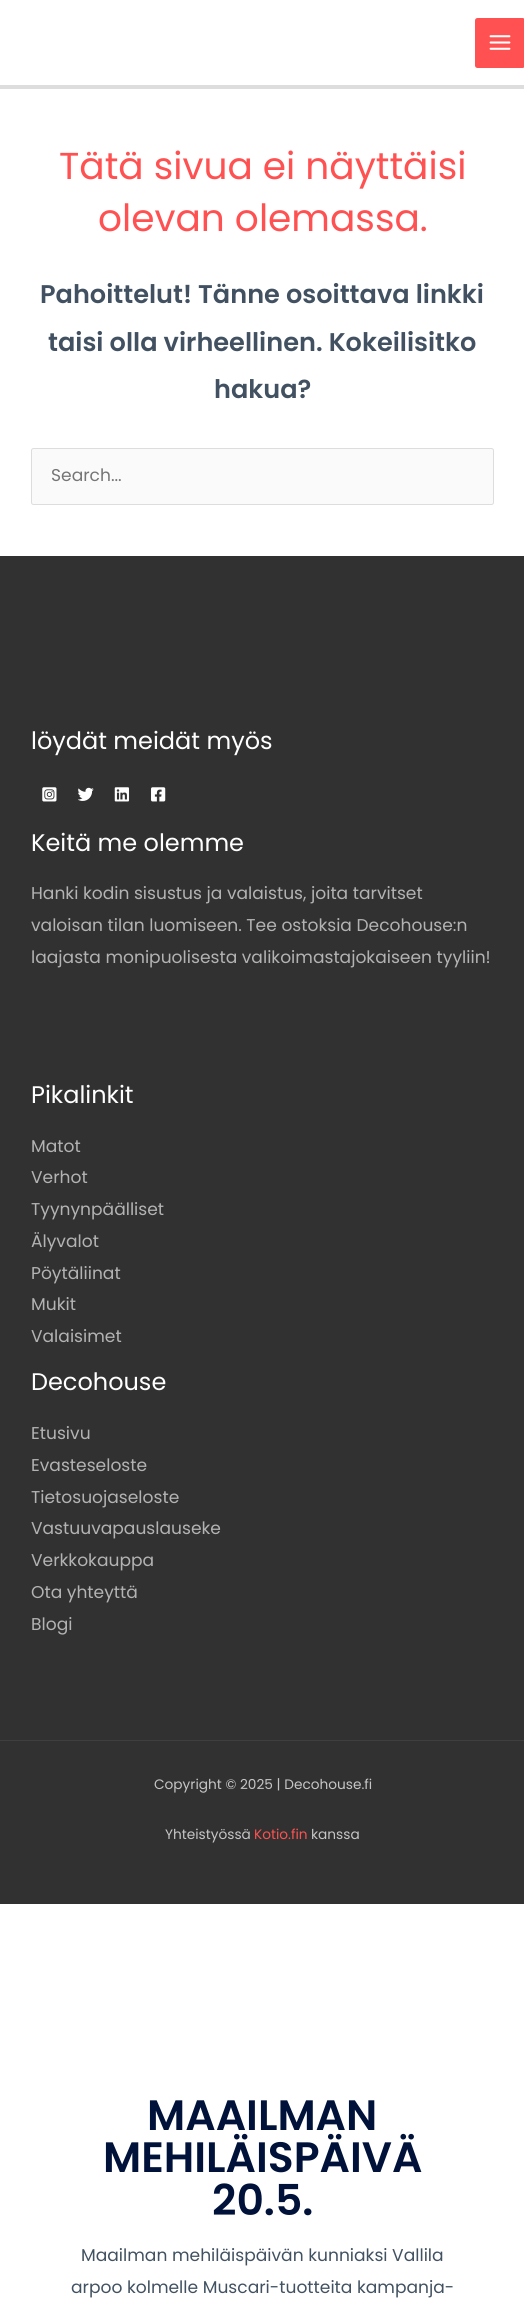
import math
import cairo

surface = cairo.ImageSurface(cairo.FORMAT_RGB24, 524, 2312)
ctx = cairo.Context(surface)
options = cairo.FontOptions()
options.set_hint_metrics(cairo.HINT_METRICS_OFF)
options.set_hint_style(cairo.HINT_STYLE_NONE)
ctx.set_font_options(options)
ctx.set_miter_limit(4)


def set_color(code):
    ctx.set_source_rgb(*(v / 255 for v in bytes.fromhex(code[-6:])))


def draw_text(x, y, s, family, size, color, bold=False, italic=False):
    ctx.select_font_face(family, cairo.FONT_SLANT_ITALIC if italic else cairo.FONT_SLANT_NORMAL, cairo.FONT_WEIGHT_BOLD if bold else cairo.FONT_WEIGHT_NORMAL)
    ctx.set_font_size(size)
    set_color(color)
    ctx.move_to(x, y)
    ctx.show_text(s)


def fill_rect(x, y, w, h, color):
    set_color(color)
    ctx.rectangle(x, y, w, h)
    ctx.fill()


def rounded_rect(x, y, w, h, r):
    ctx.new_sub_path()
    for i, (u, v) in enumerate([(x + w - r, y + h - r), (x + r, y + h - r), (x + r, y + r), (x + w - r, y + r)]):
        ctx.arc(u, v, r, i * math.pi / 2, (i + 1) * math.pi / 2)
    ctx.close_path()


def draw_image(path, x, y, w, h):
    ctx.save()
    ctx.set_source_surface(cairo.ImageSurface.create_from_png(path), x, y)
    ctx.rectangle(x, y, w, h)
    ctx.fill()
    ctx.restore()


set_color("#ffffff")
ctx.paint()
fill_rect(0, 85, 524, 4, "#dddddd")
set_color("#ff5151")
rounded_rect(475, 18, 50, 50, 2.5)
ctx.fill()
draw_image("assets/img1.png", 489, 35, 22, 15)
draw_text(59, 179, "Tätä sivua ei näyttäisi", "Poppins", 37.5, "#ff5151")
draw_text(98, 231, "olevan olemassa.", "Poppins", 37.5, "#ff5151")
draw_text(40, 303, "Pahoittelut! Tänne osoittava linkki", "Poppins SemiBold", 25.6, "#415161")
draw_text(48, 351, "taisi olla virheellinen. Kokeilisitko", "Poppins SemiBold", 25.6, "#415161")
draw_text(214, 398, "hakua?", "Poppins SemiBold", 25.6, "#415161")
set_color("#fafafa")
rounded_rect(31.5, 448.5, 462, 56, 2)
ctx.fill_preserve()
set_color("#dddddd")
ctx.set_line_width(1)
ctx.stroke()
draw_text(51, 481, "Search...", "Poppins", 17.1, "#757575")
fill_rect(0, 556, 524, 1348, "#313131")
draw_text(31, 749, "löydät meidät myös", "Poppins", 24, "#ffffff")
draw_image("assets/img2.png", 42, 787, 15, 15)
draw_image("assets/img3.png", 78, 787, 16, 14)
draw_image("assets/img4.png", 114, 787, 15, 15)
draw_image("assets/img5.png", 151, 787, 15, 15)
draw_text(31, 851, "Keitä me olemme", "Poppins", 24, "#ffffff")
draw_text(31, 899, "Hanki kodin sisustus ja valaistus, joita tarvitset", "Poppins", 17.1, "#b3b3b3")
draw_text(31, 931, "valoisan tilan luomiseen. Tee ostoksia Decohouse:n", "Poppins", 17.1, "#b3b3b3")
draw_text(31, 963, "laajasta monipuolisesta valikoimastajokaiseen tyyliin!", "Poppins", 17.1, "#b3b3b3")
draw_text(31, 1103, "Pikalinkit", "Poppins", 24, "#ffffff")
draw_text(31, 1152, "Matot", "Poppins", 17.1, "#b3b3b3")
draw_text(31, 1183, "Verhot", "Poppins", 17.1, "#b3b3b3")
draw_text(31, 1215, "Tyynynpäälliset", "Poppins", 17.1, "#b3b3b3")
draw_text(31, 1247, "Älyvalot", "Poppins", 17.1, "#b3b3b3")
draw_text(31, 1279, "Pöytäliinat", "Poppins", 17.1, "#b3b3b3")
draw_text(31, 1310, "Mukit", "Poppins", 17.1, "#b3b3b3")
draw_text(31, 1342, "Valaisimet", "Poppins", 17.1, "#b3b3b3")
draw_text(31, 1390, "Decohouse", "Poppins", 24, "#ffffff")
draw_text(31, 1439, "Etusivu", "Poppins", 17.1, "#b3b3b3")
draw_text(31, 1471, "Evasteseloste", "Poppins", 17.1, "#b3b3b3")
draw_text(31, 1503, "Tietosuojaseloste", "Poppins", 17.1, "#b3b3b3")
draw_text(31, 1534, "Vastuuvapauslauseke", "Poppins", 17.1, "#b3b3b3")
draw_text(31, 1566, "Verkkokauppa", "Poppins", 17.1, "#b3b3b3")
draw_text(31, 1598, "Ota yhteyttä", "Poppins", 17.1, "#b3b3b3")
draw_text(31, 1630, "Blogi", "Poppins", 17.1, "#b3b3b3")
fill_rect(0, 1740, 524, 1, "#3f3f3f")
draw_text(154, 1789, "Copyright © 2025 | Decohouse.fi", "Poppins", 13.7, "#c6c6c6")
draw_text(165, 1839, "Yhteistyössä", "Poppins", 13.7, "#c6c6c6")
draw_text(254, 1839, "Kotio.fin", "Poppins", 13.7, "#ff5151")
draw_text(311, 1839, "kanssa", "Poppins", 13.7, "#c6c6c6")
draw_text(147, 2130, "MAAILMAN", "Poppins SemiBold", 42.5, "#00123a")
draw_text(103, 2172, "MEHILÄISPÄIVÄ", "Poppins SemiBold", 42.5, "#00123a")
draw_text(212, 2215, "20.5.", "Poppins SemiBold", 42.5, "#00123a")
draw_text(81, 2261, "Maailman mehiläispäivän kunniaksi Vallila", "Poppins", 17.1, "#415161")
draw_text(71, 2293, "arpoo kolmelle Muscari-tuotteita kampanja-", "Poppins", 17.1, "#415161")
surface.write_to_png("output.png")
